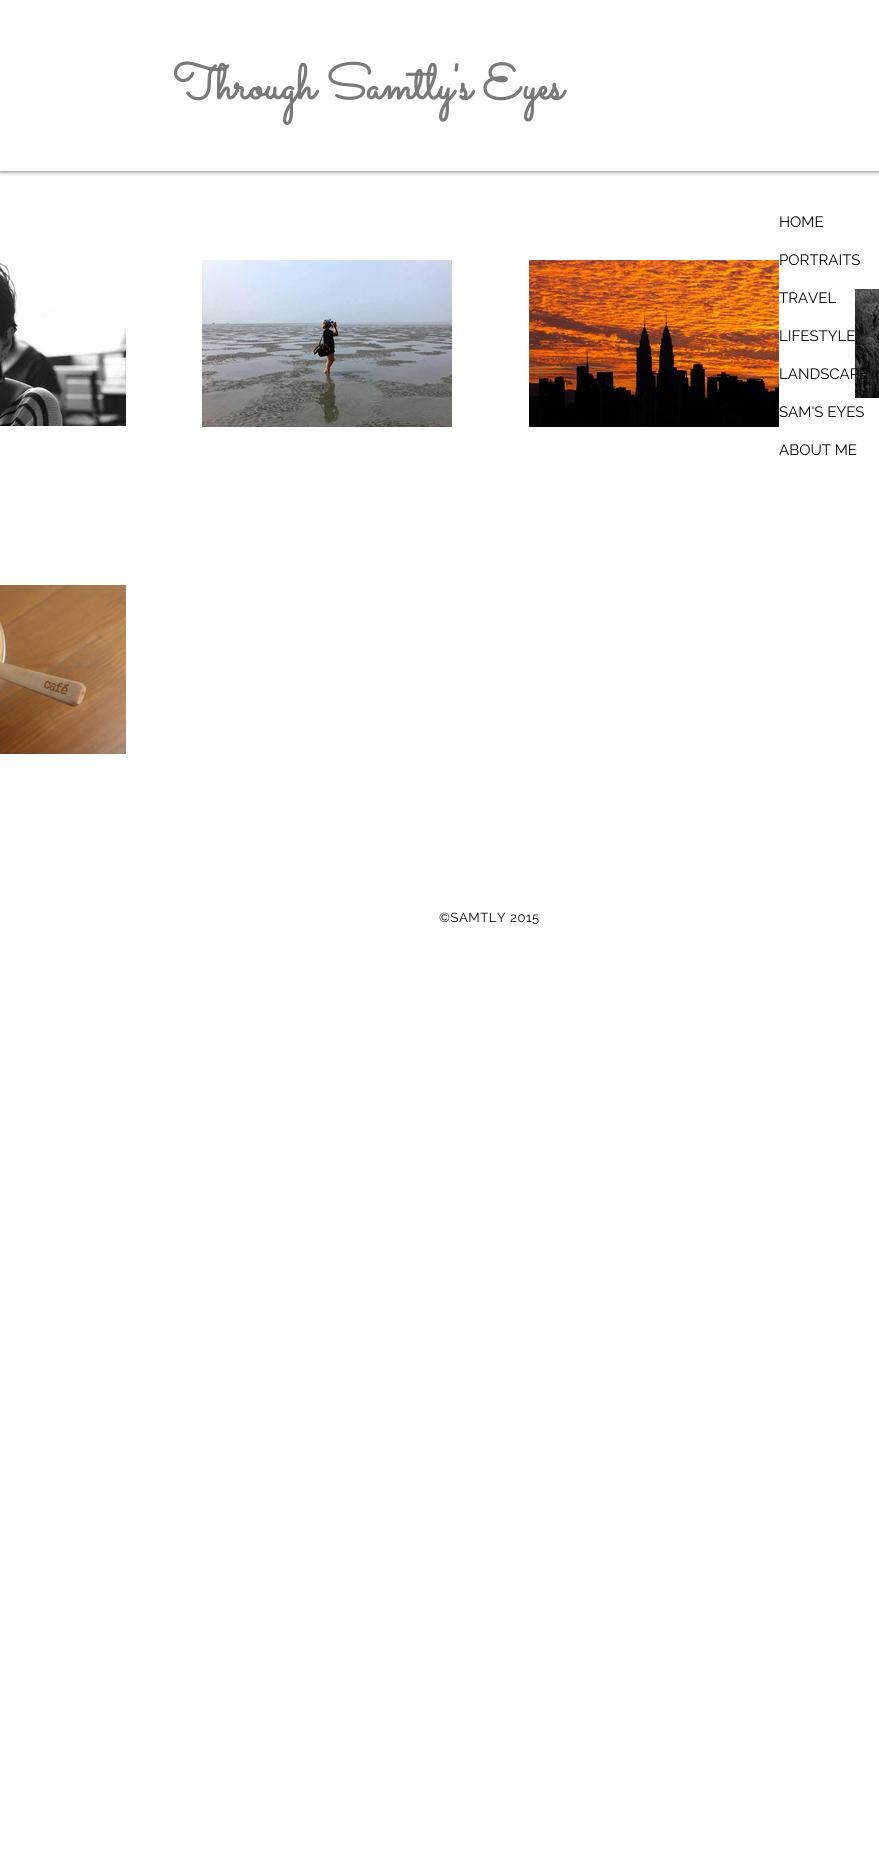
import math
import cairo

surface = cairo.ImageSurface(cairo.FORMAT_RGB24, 879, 1856)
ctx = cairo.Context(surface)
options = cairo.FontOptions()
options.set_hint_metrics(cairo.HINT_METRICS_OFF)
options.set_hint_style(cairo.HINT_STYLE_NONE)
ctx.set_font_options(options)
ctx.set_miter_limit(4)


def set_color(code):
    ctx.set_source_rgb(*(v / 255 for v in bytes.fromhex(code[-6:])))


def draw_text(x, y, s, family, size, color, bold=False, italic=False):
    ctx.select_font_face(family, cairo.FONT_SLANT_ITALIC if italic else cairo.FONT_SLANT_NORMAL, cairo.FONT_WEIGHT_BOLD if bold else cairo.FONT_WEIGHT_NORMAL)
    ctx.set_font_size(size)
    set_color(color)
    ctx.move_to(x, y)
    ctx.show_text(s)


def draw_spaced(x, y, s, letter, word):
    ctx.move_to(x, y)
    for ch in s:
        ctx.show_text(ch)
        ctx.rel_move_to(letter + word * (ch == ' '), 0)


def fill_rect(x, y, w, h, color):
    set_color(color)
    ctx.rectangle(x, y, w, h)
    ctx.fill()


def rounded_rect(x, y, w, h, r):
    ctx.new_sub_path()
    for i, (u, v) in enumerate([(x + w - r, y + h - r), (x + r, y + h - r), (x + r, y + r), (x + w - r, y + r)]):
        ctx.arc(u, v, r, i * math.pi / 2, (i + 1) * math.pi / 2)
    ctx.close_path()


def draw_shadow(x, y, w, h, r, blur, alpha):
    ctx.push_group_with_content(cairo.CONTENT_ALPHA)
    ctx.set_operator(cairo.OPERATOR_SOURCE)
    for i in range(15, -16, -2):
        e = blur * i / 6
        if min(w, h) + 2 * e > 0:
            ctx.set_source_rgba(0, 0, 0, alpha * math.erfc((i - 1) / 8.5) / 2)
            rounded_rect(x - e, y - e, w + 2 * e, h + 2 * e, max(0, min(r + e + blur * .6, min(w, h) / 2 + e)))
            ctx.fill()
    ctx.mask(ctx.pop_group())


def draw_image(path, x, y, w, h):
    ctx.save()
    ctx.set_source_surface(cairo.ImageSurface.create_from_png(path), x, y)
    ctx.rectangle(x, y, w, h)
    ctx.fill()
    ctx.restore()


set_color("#ffffff")
ctx.paint()
set_color("#000000")
draw_shadow(0, 0, 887, 171, 0, 2.5, 0.7)
fill_rect(0, 0, 879, 171, "#ffffff")
draw_text(173, 99, "Through Samtly's Eyes", "Sacramento", 49, "#797979", bold=True)
draw_text(779, 227, "HOME", "Raleway", 15, "#050505")
draw_text(779, 265, "PORTRAITS", "Raleway", 15, "#050505")
draw_text(779, 303, "TRAVEL", "Raleway", 15, "#050505")
draw_text(779, 341, "LIFESTYLE", "Raleway", 15, "#050505")
draw_image("assets/img4.png", 855, 289, 24, 109)
draw_text(779, 379, "LANDSCAPE", "Raleway", 15, "#050505")
draw_text(779, 417, "SAM'S EYES", "Raleway", 15, "#050505")
draw_text(779, 455, "ABOUT ME", "Raleway", 15, "#050505")
draw_image("assets/img1.png", 0, 260, 126, 166)
draw_image("assets/img2.png", 202, 260, 250, 167)
draw_image("assets/img3.png", 529, 260, 250, 167)
draw_image("assets/img5.png", 0, 585, 126, 169)
ctx.set_font_size(13)
draw_spaced(439, 922, "©SAMTLY 2015", 0.6, 0)
surface.write_to_png("output.png")
